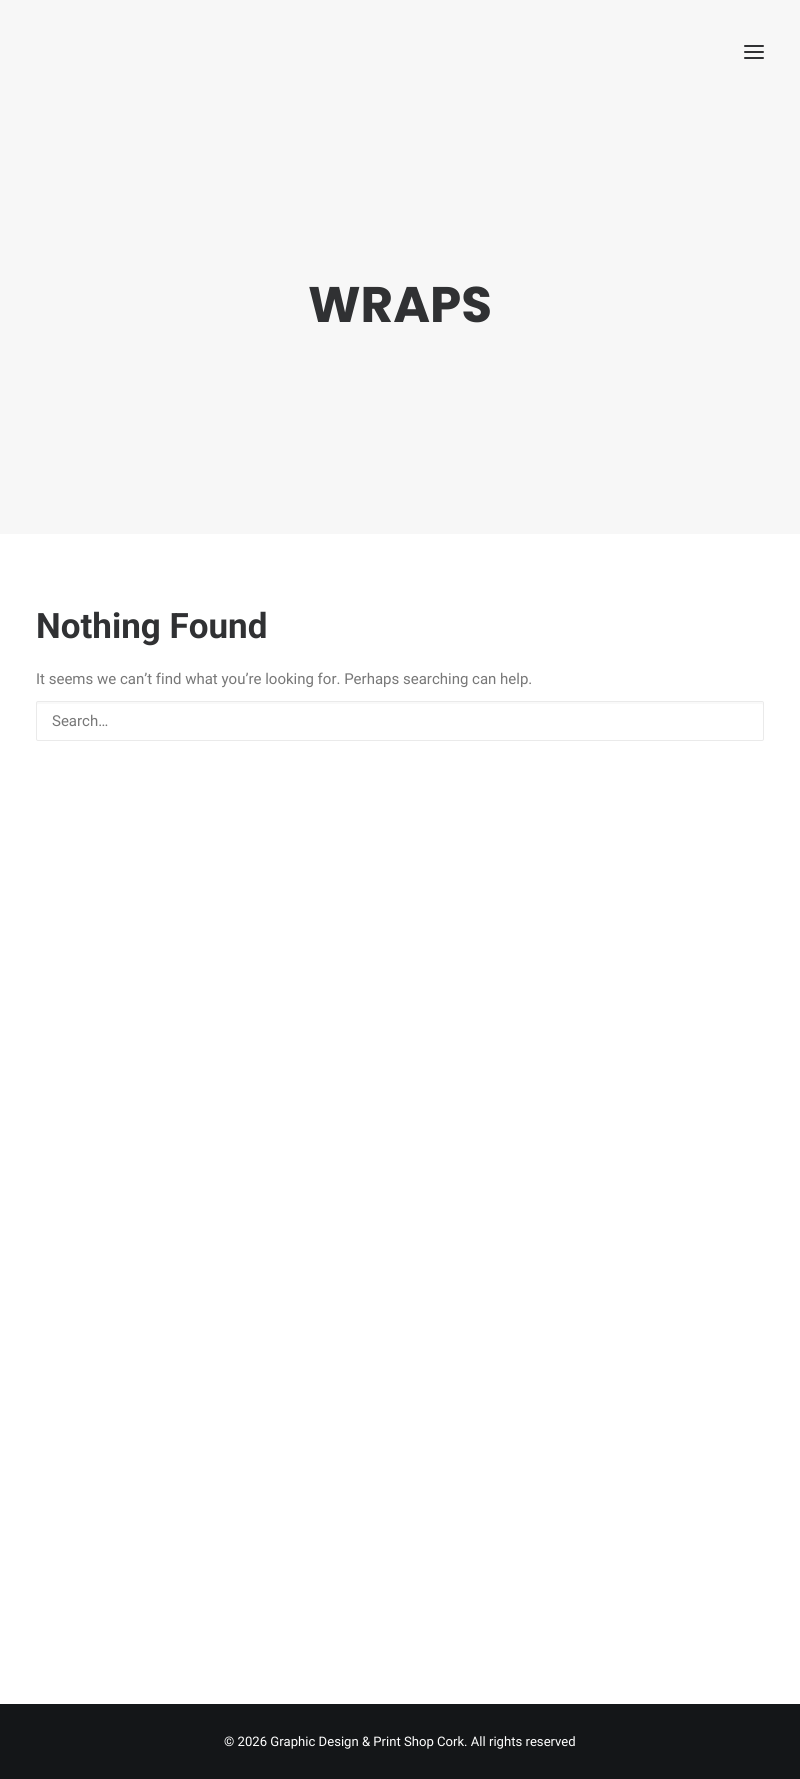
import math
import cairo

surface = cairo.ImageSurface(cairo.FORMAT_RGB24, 800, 1779)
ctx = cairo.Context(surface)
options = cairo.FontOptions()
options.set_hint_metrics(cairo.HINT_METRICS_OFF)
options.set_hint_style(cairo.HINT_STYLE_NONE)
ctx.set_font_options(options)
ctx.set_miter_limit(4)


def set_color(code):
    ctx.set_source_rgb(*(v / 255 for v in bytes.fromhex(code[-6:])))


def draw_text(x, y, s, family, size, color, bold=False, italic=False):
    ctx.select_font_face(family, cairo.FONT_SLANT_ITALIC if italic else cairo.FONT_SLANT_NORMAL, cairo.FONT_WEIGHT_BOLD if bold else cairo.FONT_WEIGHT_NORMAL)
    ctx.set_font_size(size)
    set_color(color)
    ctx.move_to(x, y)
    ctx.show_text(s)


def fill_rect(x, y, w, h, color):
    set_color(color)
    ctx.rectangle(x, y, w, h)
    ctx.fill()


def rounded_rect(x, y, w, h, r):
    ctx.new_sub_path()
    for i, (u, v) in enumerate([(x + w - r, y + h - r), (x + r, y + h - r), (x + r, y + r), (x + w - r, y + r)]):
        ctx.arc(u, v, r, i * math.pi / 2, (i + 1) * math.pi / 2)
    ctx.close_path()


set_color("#f7f7f7")
ctx.paint()
set_color("#303133")
rounded_rect(744, 51, 20, 2, 1)
ctx.fill()
rounded_rect(744, 45, 20, 2, 1)
ctx.fill()
rounded_rect(744, 57, 20, 2, 1)
ctx.fill()
draw_text(308, 322, "WRAPS", "Poppins", 50, "#303133", bold=True)
fill_rect(0, 534, 800, 1170, "#ffffff")
draw_text(36, 638, "Nothing Found", "Roboto", 35, "#303133", bold=True)
draw_text(36, 684, "It seems we can’t find what you’re looking for. Perhaps searching can help.", "Roboto", 15, "#777777")
set_color("#f9f9f9")
ctx.new_path()
ctx.move_to(38, 704)
ctx.line_to(762, 704)
ctx.line_to(763, 705)
ctx.curve_to(763, 704, 763, 702, 762, 702)
ctx.line_to(37, 702)
ctx.line_to(37, 705)
ctx.close_path()
ctx.fill()
rounded_rect(36.5, 701.5, 727, 39, 1.5)
set_color("#eaeaea")
ctx.set_line_width(1)
ctx.stroke()
draw_text(52, 726, "Search…", "Roboto", 15, "#777777")
fill_rect(0, 1704, 800, 75, "#141618")
draw_text(224, 1746, "© 2026 Graphic Design & Print Shop Cork. All rights reserved", "Roboto", 13.1, "#ffffff")
surface.write_to_png("output.png")
